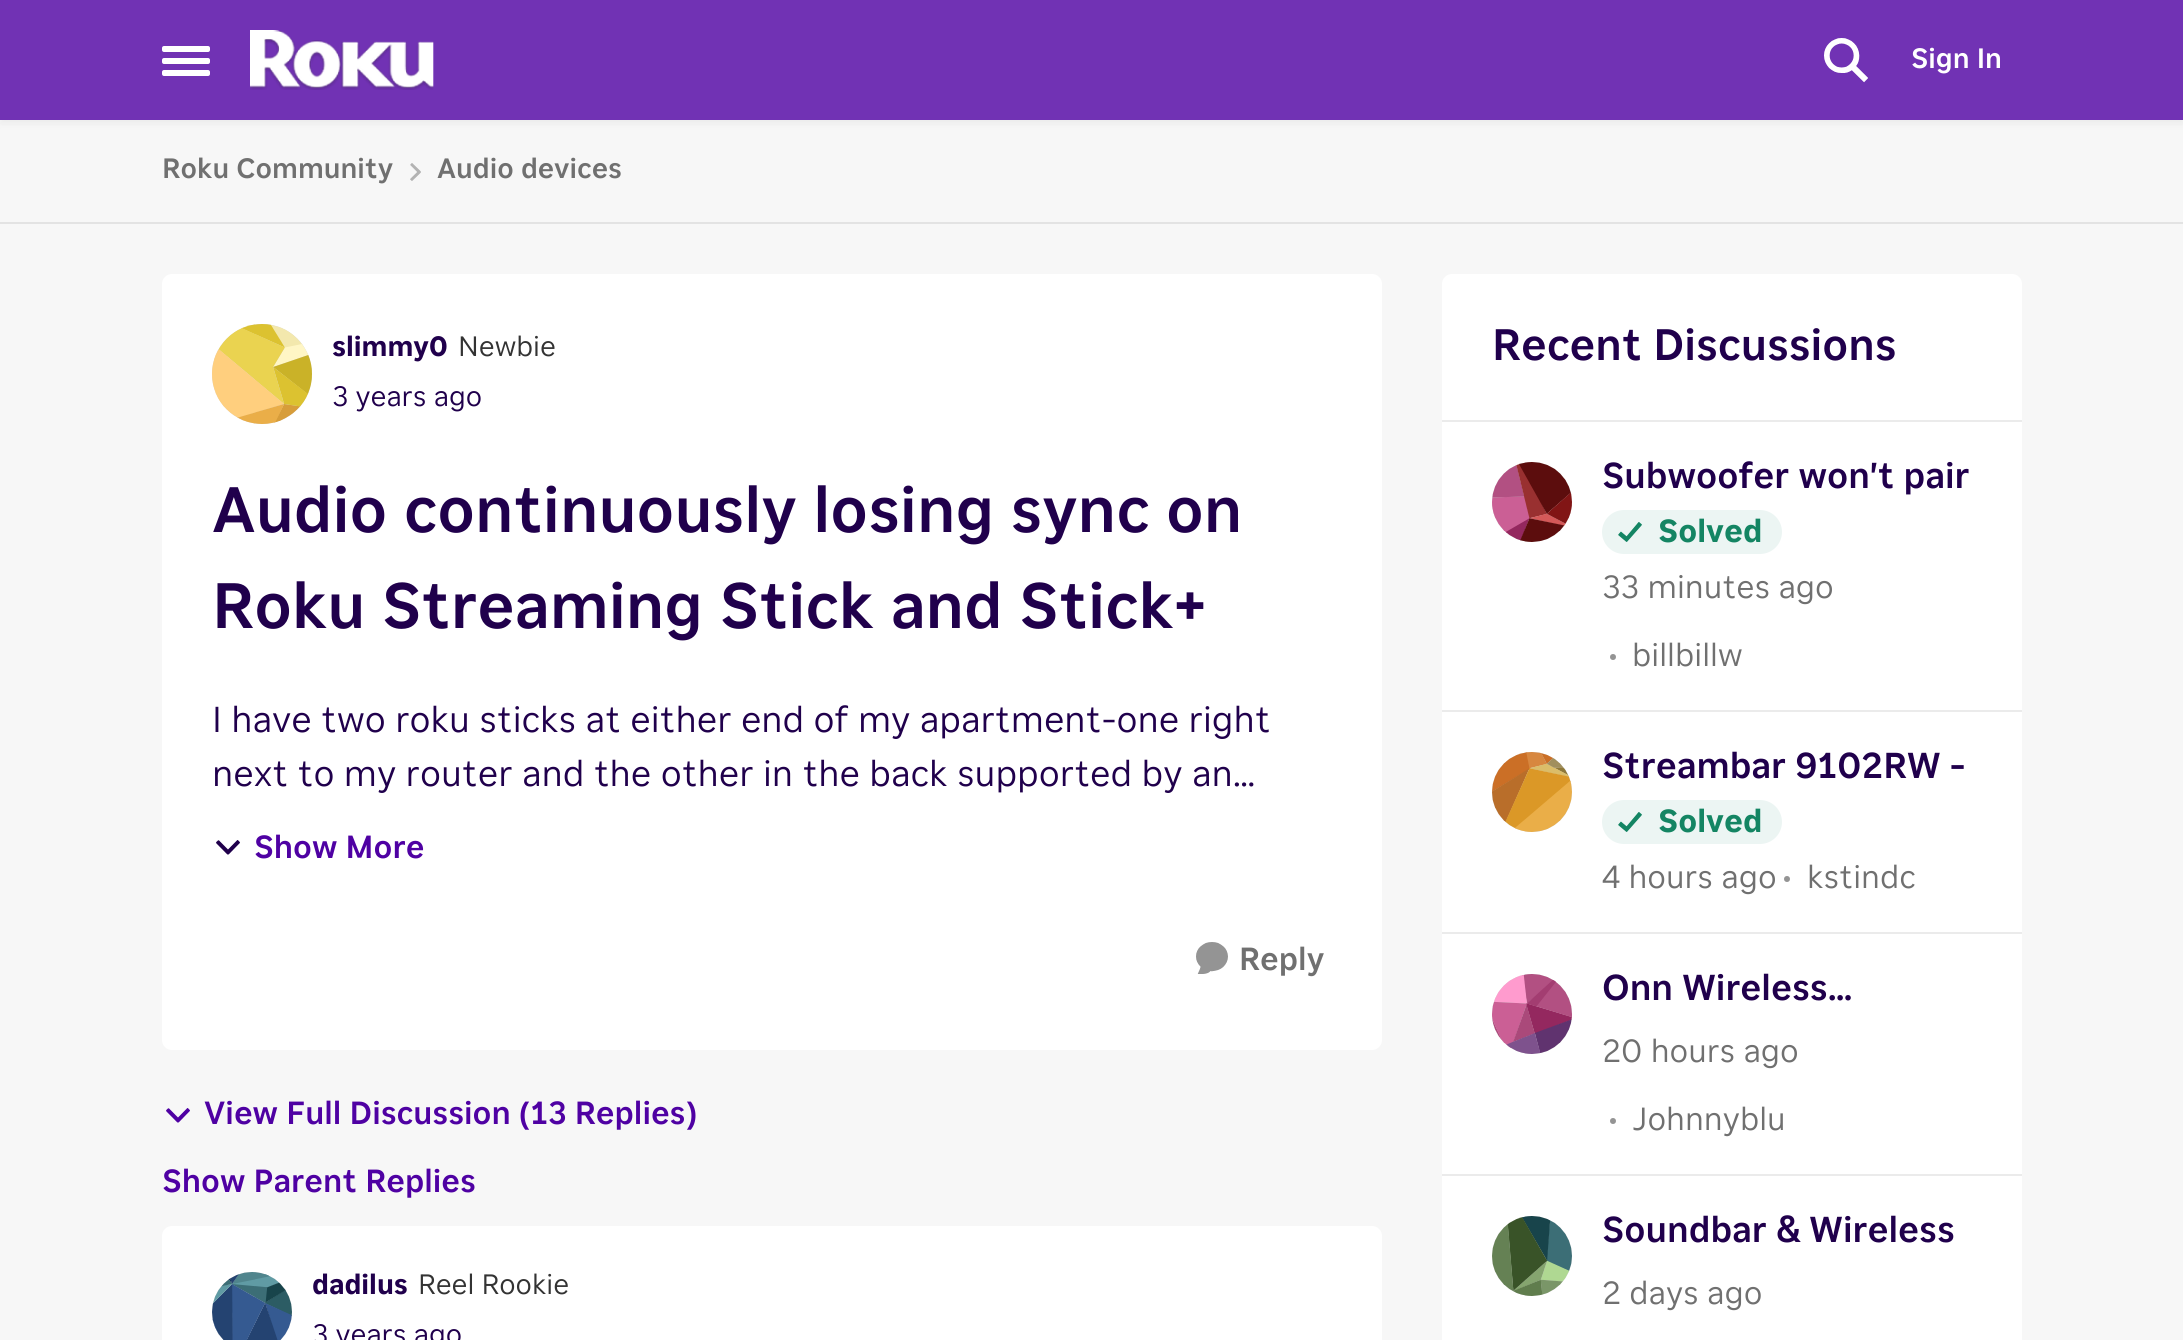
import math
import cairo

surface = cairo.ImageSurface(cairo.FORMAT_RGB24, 2183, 1340)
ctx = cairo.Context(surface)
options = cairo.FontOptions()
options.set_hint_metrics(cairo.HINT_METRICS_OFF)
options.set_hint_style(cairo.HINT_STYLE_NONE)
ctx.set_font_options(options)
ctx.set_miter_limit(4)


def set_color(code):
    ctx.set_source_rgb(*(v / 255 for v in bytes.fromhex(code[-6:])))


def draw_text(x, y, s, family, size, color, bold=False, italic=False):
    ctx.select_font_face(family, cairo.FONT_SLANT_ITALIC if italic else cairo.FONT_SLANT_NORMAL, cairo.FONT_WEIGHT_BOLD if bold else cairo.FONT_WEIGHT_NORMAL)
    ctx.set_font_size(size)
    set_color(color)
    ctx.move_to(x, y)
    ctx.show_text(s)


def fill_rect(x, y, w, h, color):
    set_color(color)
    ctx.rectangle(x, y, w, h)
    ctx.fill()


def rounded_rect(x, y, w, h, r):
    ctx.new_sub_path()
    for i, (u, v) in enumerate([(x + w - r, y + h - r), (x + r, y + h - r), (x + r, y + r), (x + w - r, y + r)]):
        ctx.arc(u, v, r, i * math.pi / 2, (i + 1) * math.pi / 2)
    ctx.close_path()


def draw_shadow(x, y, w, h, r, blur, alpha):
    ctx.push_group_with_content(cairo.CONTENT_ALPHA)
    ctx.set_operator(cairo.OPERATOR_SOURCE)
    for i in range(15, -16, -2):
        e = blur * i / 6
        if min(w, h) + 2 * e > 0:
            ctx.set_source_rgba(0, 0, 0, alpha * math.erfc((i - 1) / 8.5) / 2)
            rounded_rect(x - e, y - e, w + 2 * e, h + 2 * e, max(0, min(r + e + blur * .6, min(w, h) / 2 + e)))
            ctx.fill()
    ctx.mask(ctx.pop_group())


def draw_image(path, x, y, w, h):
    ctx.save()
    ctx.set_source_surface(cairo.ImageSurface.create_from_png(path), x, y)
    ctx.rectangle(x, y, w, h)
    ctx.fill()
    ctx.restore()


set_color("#f7f7f7")
ctx.paint()
set_color("#333333")
draw_shadow(0, 4, 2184, 120, 0, 4, 0.06)
fill_rect(0, 0, 2183, 120, "#7132b4")
set_color("#ffffff")
rounded_rect(162, 46, 48, 6, 2)
ctx.fill()
rounded_rect(162, 58, 48, 6, 2)
ctx.fill()
rounded_rect(162, 70, 48, 6, 2)
ctx.fill()
draw_image("assets/img1.png", 250, 30, 184, 60)
draw_image("assets/img2.png", 1824, 38, 44, 45)
draw_text(1911, 68, "Sign In", "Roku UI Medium", 28, "#ffffff")
fill_rect(0, 222, 2183, 2, "#e3e3e3")
draw_text(162, 178, "Roku Community", "Roku UI Medium", 28, "#707070")
draw_image("assets/img3.png", 410, 163, 11, 18)
draw_text(437, 178, "Audio devices", "Roku UI Medium", 28, "#707070")
set_color("#ffffff")
rounded_rect(162, 274, 1220, 776, 10)
ctx.fill()
set_color("#d9d9d9")
ctx.arc(262, 374, 50, 0, 2 * math.pi)
ctx.fill()
draw_image("assets/img4.png", 212, 324, 100, 100)
draw_text(332, 356, "slimmy0", "Roku UI", 28, "#20004c", bold=True)
draw_text(458, 356, "Newbie", "Roku UI", 28, "#333333")
draw_text(332, 406, "3 years ago", "Roku UI", 28, "#20004c")
draw_text(212, 532, "Audio continuously losing sync on", "Roku UI Medium", 64, "#20004c")
draw_text(212, 628, "Roku Streaming Stick and Stick+", "Roku UI Medium", 64, "#20004c")
draw_text(212, 732, "I have two roku sticks at either end of my apartment-one right", "Roku UI", 36, "#20004c")
draw_text(212, 786, "next to my router and the other in the back supported by an…", "Roku UI", 36, "#20004c")
draw_image("assets/img5.png", 216, 840, 24, 15)
draw_text(254, 858, "Show More", "Roku UI Medium", 32, "#4f01a3")
draw_image("assets/img6.png", 1196, 942, 32, 32)
draw_text(1239, 970, "Reply", "Roku UI Medium", 32, "#707070")
draw_image("assets/img7.png", 166, 1108, 24, 15)
draw_text(204, 1124, "View Full Discussion (13 Replies)", "Roku UI Medium", 32, "#4f01a3")
draw_text(162, 1192, "Show Parent Replies", "Roku UI Medium", 32, "#4f01a3")
set_color("#ffffff")
rounded_rect(162, 1226, 1220, 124, 10)
ctx.fill()
set_color("#d9d9d9")
ctx.arc(252, 1312, 40, 0, 2 * math.pi)
ctx.fill()
draw_image("assets/img8.png", 212, 1272, 80, 68)
draw_text(312, 1294, "dadilus", "Roku UI", 28, "#20004c", bold=True)
draw_text(418, 1294, "Reel Rookie", "Roku UI", 28, "#333333")
draw_text(312, 1344, "3 years ago", "Roku UI", 28, "#20004c")
set_color("#ffffff")
rounded_rect(1442, 274, 580, 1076, 10)
ctx.fill()
fill_rect(1442, 420, 580, 2, "#ebebeb")
draw_text(1492, 360, "Recent Discussions", "Roku UI Medium", 44, "#20004c")
fill_rect(1442, 710, 580, 2, "#ebebeb")
set_color("#d9d9d9")
ctx.new_path()
ctx.arc(1532, 502, 40, 0, 2 * math.pi)
ctx.fill()
draw_image("assets/img9.png", 1492, 462, 80, 80)
draw_text(1602, 488, "Subwoofer won't pair", "Roku UI Medium", 36, "#20004c")
set_color("#ecf5f3")
rounded_rect(1602, 510, 180, 44, 22)
ctx.fill()
draw_image("assets/img10.png", 1618, 522, 24, 20)
draw_text(1658, 542, "Solved", "Roku UI", 32, "#148563", bold=True)
draw_text(1602, 598, "33 minutes ago", "Roku UI", 32, "#707070")
set_color("#949494")
ctx.new_path()
ctx.arc(1613, 657, 3, 0, 2 * math.pi)
ctx.fill()
draw_text(1632, 666, "billbillw", "Roku UI", 32, "#707070")
fill_rect(1442, 932, 580, 2, "#ebebeb")
set_color("#d9d9d9")
ctx.new_path()
ctx.arc(1532, 792, 40, 0, 2 * math.pi)
ctx.fill()
draw_image("assets/img11.png", 1492, 752, 80, 80)
draw_text(1602, 778, "Streambar 9102RW -", "Roku UI Medium", 36, "#20004c")
set_color("#ecf5f3")
rounded_rect(1602, 800, 180, 44, 22)
ctx.fill()
draw_image("assets/img10.png", 1618, 812, 24, 20)
draw_text(1658, 832, "Solved", "Roku UI", 32, "#148563", bold=True)
draw_text(1602, 888, "4 hours ago", "Roku UI", 32, "#707070")
set_color("#949494")
ctx.new_path()
ctx.arc(1787, 879, 3, 0, 2 * math.pi)
ctx.fill()
draw_text(1807, 888, "kstindc", "Roku UI", 32, "#707070")
fill_rect(1442, 1174, 580, 2, "#ebebeb")
set_color("#d9d9d9")
ctx.new_path()
ctx.arc(1532, 1014, 40, 0, 2 * math.pi)
ctx.fill()
draw_image("assets/img12.png", 1492, 974, 80, 80)
draw_text(1602, 1000, "Onn Wireless…", "Roku UI Medium", 36, "#20004c")
draw_text(1602, 1062, "20 hours ago", "Roku UI", 32, "#707070")
set_color("#949494")
ctx.new_path()
ctx.arc(1613, 1121, 3, 0, 2 * math.pi)
ctx.fill()
draw_text(1632, 1130, "Johnnyblu", "Roku UI", 32, "#707070")
set_color("#d9d9d9")
ctx.new_path()
ctx.arc(1532, 1256, 40, 0, 2 * math.pi)
ctx.fill()
draw_image("assets/img13.png", 1492, 1216, 80, 80)
draw_text(1602, 1242, "Soundbar & Wireless", "Roku UI Medium", 36, "#20004c")
draw_text(1602, 1304, "2 days ago", "Roku UI", 32, "#707070")
surface.write_to_png("output.png")
